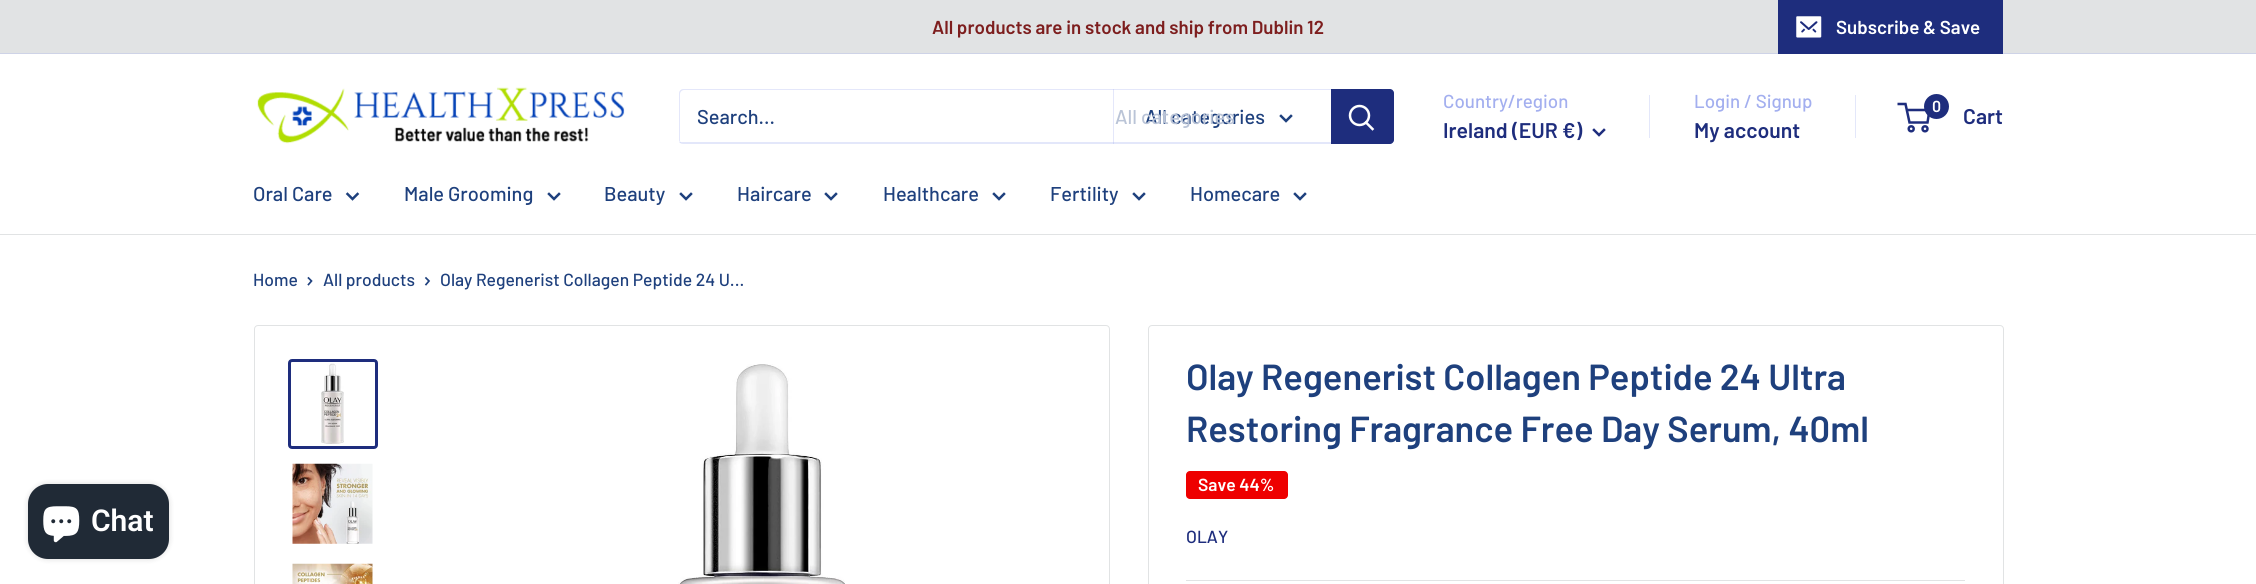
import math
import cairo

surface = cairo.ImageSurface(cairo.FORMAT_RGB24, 2256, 584)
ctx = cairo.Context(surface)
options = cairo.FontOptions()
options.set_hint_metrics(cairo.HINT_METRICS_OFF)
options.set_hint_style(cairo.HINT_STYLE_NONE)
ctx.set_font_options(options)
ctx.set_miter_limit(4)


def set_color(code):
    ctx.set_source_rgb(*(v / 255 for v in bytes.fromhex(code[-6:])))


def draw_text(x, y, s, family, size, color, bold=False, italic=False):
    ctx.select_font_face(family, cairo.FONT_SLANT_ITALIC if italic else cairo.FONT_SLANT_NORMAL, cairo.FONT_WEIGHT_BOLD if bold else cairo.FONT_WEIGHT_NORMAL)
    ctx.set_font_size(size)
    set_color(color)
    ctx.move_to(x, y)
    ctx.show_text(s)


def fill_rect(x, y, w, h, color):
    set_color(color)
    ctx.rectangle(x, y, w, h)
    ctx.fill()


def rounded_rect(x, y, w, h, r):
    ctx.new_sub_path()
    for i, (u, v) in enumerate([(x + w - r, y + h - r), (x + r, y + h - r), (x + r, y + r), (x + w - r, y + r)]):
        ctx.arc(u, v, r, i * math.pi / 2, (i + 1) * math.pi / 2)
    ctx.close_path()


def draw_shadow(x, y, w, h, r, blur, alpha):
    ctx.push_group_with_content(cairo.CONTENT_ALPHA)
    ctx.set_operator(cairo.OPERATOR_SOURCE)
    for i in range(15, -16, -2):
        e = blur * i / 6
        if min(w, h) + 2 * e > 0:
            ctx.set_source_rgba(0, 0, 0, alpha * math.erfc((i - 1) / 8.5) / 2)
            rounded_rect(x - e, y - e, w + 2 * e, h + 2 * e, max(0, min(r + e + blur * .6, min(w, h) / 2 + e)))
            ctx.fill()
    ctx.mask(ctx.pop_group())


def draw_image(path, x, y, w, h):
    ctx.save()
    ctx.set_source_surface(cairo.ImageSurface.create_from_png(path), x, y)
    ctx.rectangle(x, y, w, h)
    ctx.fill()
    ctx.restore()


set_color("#ffffff")
ctx.paint()
fill_rect(0, 0, 2256, 53, "#e1e3e4")
fill_rect(0, 53, 2256, 1, "#ced3e7")
draw_text(932, 34, "All products are in stock and ship from Dublin 12", "Barlow SemiBold", 18.75, "#7d1e1e")
set_color("#1e2d7d")
ctx.new_path()
ctx.move_to(1778, 52)
ctx.line_to(1778, 54)
ctx.line_to(2003, 54)
ctx.line_to(2003, 1)
ctx.line_to(2002, 1)
ctx.line_to(2002, 52)
ctx.close_path()
ctx.fill()
fill_rect(1778, 0, 225, 52, "#1e2d7d")
draw_image("assets/img1.png", 1796, 16, 26, 22)
draw_text(1836, 34, "Subscribe & Save", "Barlow SemiBold", 18.75, "#ffffff")
draw_image("assets/img2.png", 257, 87, 368, 57)
set_color("#e3e7fa")
ctx.new_path()
ctx.move_to(679, 142)
ctx.curve_to(680, 143, 681, 144, 683, 144)
ctx.line_to(1390, 144)
ctx.curve_to(1392, 144, 1394, 142, 1394, 140)
ctx.line_to(1394, 93)
ctx.curve_to(1394, 91, 1393, 90, 1392, 89)
ctx.line_to(1392, 131)
ctx.curve_to(1392, 133, 1394, 142, 1389, 142)
ctx.close_path()
ctx.fill()
ctx.set_source_rgba(0.639, 0.686, 0.937, 0.3)
ctx.new_path()
ctx.move_to(684, 90)
ctx.line_to(1391, 90)
ctx.line_to(1393, 91)
ctx.curve_to(1393, 90, 1391, 89, 1390, 89)
ctx.line_to(683, 89)
ctx.curve_to(681, 89, 679, 91, 679, 93)
ctx.line_to(679, 140)
ctx.curve_to(679, 141, 680, 143, 681, 143)
ctx.line_to(680, 141)
ctx.line_to(680, 94)
ctx.curve_to(680, 92, 682, 90, 684, 90)
ctx.close_path()
ctx.fill()
draw_text(697, 124, "Search...", "Barlow Medium", 20, "#1e407d")
ctx.set_source_rgba(0.639, 0.686, 0.937, 0.3)
ctx.rectangle(1113, 89, 1, 55)
ctx.fill()
draw_text(1145, 124, "All categories", "Barlow Medium", 20, "#1e407d")
draw_text(1115, 124, "All categories", "Barlow Medium", 20, "#bac4d7")
ctx.new_path()
ctx.move_to(1291, 116)
ctx.line_to(1286, 121)
ctx.line_to(1281, 116)
set_color("#1e407d")
ctx.set_line_width(2.5)
ctx.set_line_cap(cairo.LINE_CAP_SQUARE)
ctx.stroke()
set_color("#1e2d7d")
ctx.new_path()
ctx.move_to(1331, 89)
ctx.line_to(1390, 89)
ctx.curve_to(1392, 89, 1394, 91, 1394, 93)
ctx.line_to(1394, 140)
ctx.curve_to(1394, 142, 1392, 144, 1390, 144)
ctx.line_to(1331, 144)
ctx.close_path()
ctx.fill()
ctx.new_path()
ctx.move_to(1372.5, 129)
ctx.line_to(1366, 122.5)
set_color("#ffffff")
ctx.stroke()
ctx.arc(1359.5, 115.5, 9.5, 0, 2 * math.pi)
ctx.set_line_cap(cairo.LINE_CAP_BUTT)
ctx.stroke()
draw_text(1443, 108, "Country/region", "Barlow Medium", 18.75, "#a3afef")
draw_text(1443, 138, "Ireland (EUR €)", "Barlow SemiBold", 21.25, "#1e2d7d")
ctx.new_path()
ctx.move_to(1604, 130)
ctx.line_to(1599, 135)
ctx.line_to(1594, 130)
ctx.set_line_cap(cairo.LINE_CAP_SQUARE)
ctx.stroke()
fill_rect(1649, 95, 1, 43, "#e3e7fa")
draw_text(1694, 108, "Login / Signup", "Barlow Medium", 18.75, "#a3afef")
fill_rect(1855, 95, 1, 43, "#e3e7fa")
draw_text(1694, 138, "My account", "Barlow SemiBold", 21.25, "#1e2d7d")
ctx.new_path()
ctx.arc(1911.2, 128.8, 2.5, 0, 2 * math.pi)
ctx.set_line_cap(cairo.LINE_CAP_BUTT)
ctx.stroke()
ctx.arc(1925, 128.8, 2.5, 0, 2 * math.pi)
ctx.stroke()
ctx.new_path()
ctx.move_to(1906.5, 110)
ctx.line_to(1929.5, 110)
ctx.line_to(1927.5, 122.5)
ctx.line_to(1909.5, 122.5)
ctx.line_to(1905.5, 104)
ctx.line_to(1897.5, 104)
ctx.stroke()
ctx.arc(1936.5, 106.5, 12.5, 0, 2 * math.pi)
ctx.fill()
draw_text(1932, 112, "0", "Barlow SemiBold", 16, "#ffffff")
draw_text(1963, 124, "Cart", "Barlow SemiBold", 21.25, "#1e2d7d")
fill_rect(0, 234, 2256, 1, "#e1e3e4")
draw_text(253, 201, "Oral Care", "Barlow Medium", 20, "#1e407d")
ctx.new_path()
ctx.move_to(357.5, 194)
ctx.line_to(352.5, 199)
ctx.line_to(347.5, 194)
ctx.set_line_cap(cairo.LINE_CAP_SQUARE)
ctx.stroke()
draw_text(404, 201, "Male Grooming", "Barlow Medium", 20, "#1e407d")
ctx.new_path()
ctx.move_to(559, 194)
ctx.line_to(554, 199)
ctx.line_to(549, 194)
ctx.stroke()
draw_text(604, 201, "Beauty", "Barlow Medium", 20, "#1e407d")
ctx.new_path()
ctx.move_to(691, 194)
ctx.line_to(686, 199)
ctx.line_to(681, 194)
ctx.stroke()
draw_text(737, 201, "Haircare", "Barlow Medium", 20, "#1e407d")
ctx.new_path()
ctx.move_to(836, 194)
ctx.line_to(831, 199)
ctx.line_to(826, 194)
ctx.stroke()
draw_text(883, 201, "Healthcare", "Barlow Medium", 20, "#1e407d")
ctx.new_path()
ctx.move_to(1004, 194)
ctx.line_to(999, 199)
ctx.line_to(994, 194)
ctx.stroke()
draw_text(1050, 201, "Fertility", "Barlow Medium", 20, "#1e407d")
ctx.new_path()
ctx.move_to(1144, 194)
ctx.line_to(1139, 199)
ctx.line_to(1134, 194)
ctx.stroke()
draw_text(1190, 201, "Homecare", "Barlow Medium", 20, "#1e407d")
ctx.new_path()
ctx.move_to(1305, 194)
ctx.line_to(1300, 199)
ctx.line_to(1295, 194)
ctx.stroke()
set_color("#000000")
draw_shadow(28, 484, 141, 75, 20, 3, 0.15)
set_color("#202a36")
rounded_rect(28, 484, 141, 75, 20)
ctx.fill()
draw_image("assets/img3.png", 43, 506, 37, 37)
draw_text(91, 531, "Chat", "Roboto SemiBold", 30, "#ffffff")
draw_text(253, 286, "Home", "Barlow Medium", 17.5, "#1e407d")
ctx.new_path()
ctx.move_to(308.5, 278)
ctx.line_to(311.5, 281)
ctx.line_to(308.5, 284.5)
ctx.set_line_width(1.7)
ctx.stroke()
draw_text(323, 286, "All products", "Barlow Medium", 17.5, "#1e407d")
ctx.new_path()
ctx.move_to(426, 278)
ctx.line_to(429, 281)
ctx.line_to(426, 284.5)
ctx.stroke()
draw_text(440, 286, "Olay Regenerist Collagen Peptide 24 U...", "Barlow Medium", 17.5, "#1e407d")
rounded_rect(254.5, 325.5, 855, 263, 3.5)
set_color("#e1e3e4")
ctx.set_line_width(1)
ctx.set_line_cap(cairo.LINE_CAP_BUTT)
ctx.stroke()
rounded_rect(289.5, 360.5, 87, 87, 2.5)
set_color("#1e2d7d")
ctx.set_line_width(3)
ctx.stroke()
draw_image("assets/img4.png", 321, 363, 23, 81)
draw_image("assets/img5.png", 292, 463, 81, 81)
draw_image("assets/img6.png", 292, 563, 81, 21)
draw_image("assets/img7.png", 678, 364, 167, 220)
rounded_rect(1148.5, 325.5, 855, 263, 3.5)
set_color("#e1e3e4")
ctx.set_line_width(1)
ctx.stroke()
draw_text(1186, 390, "Olay Regenerist Collagen Peptide 24 Ultra", "Barlow SemiBold", 36.25, "#1e407d")
draw_text(1186, 442, "Restoring Fragrance Free Day Serum, 40ml", "Barlow SemiBold", 36.25, "#1e407d")
set_color("#ee0000")
rounded_rect(1186, 471, 102, 28, 4)
ctx.fill()
draw_text(1198, 491, "Save 44%", "Barlow SemiBold", 17.5, "#ffffff")
draw_text(1186, 543, "OLAY", "Barlow Medium", 17.5, "#1e2d7d")
fill_rect(1186, 580, 779, 1, "#e1e3e4")
surface.write_to_png("output.png")
